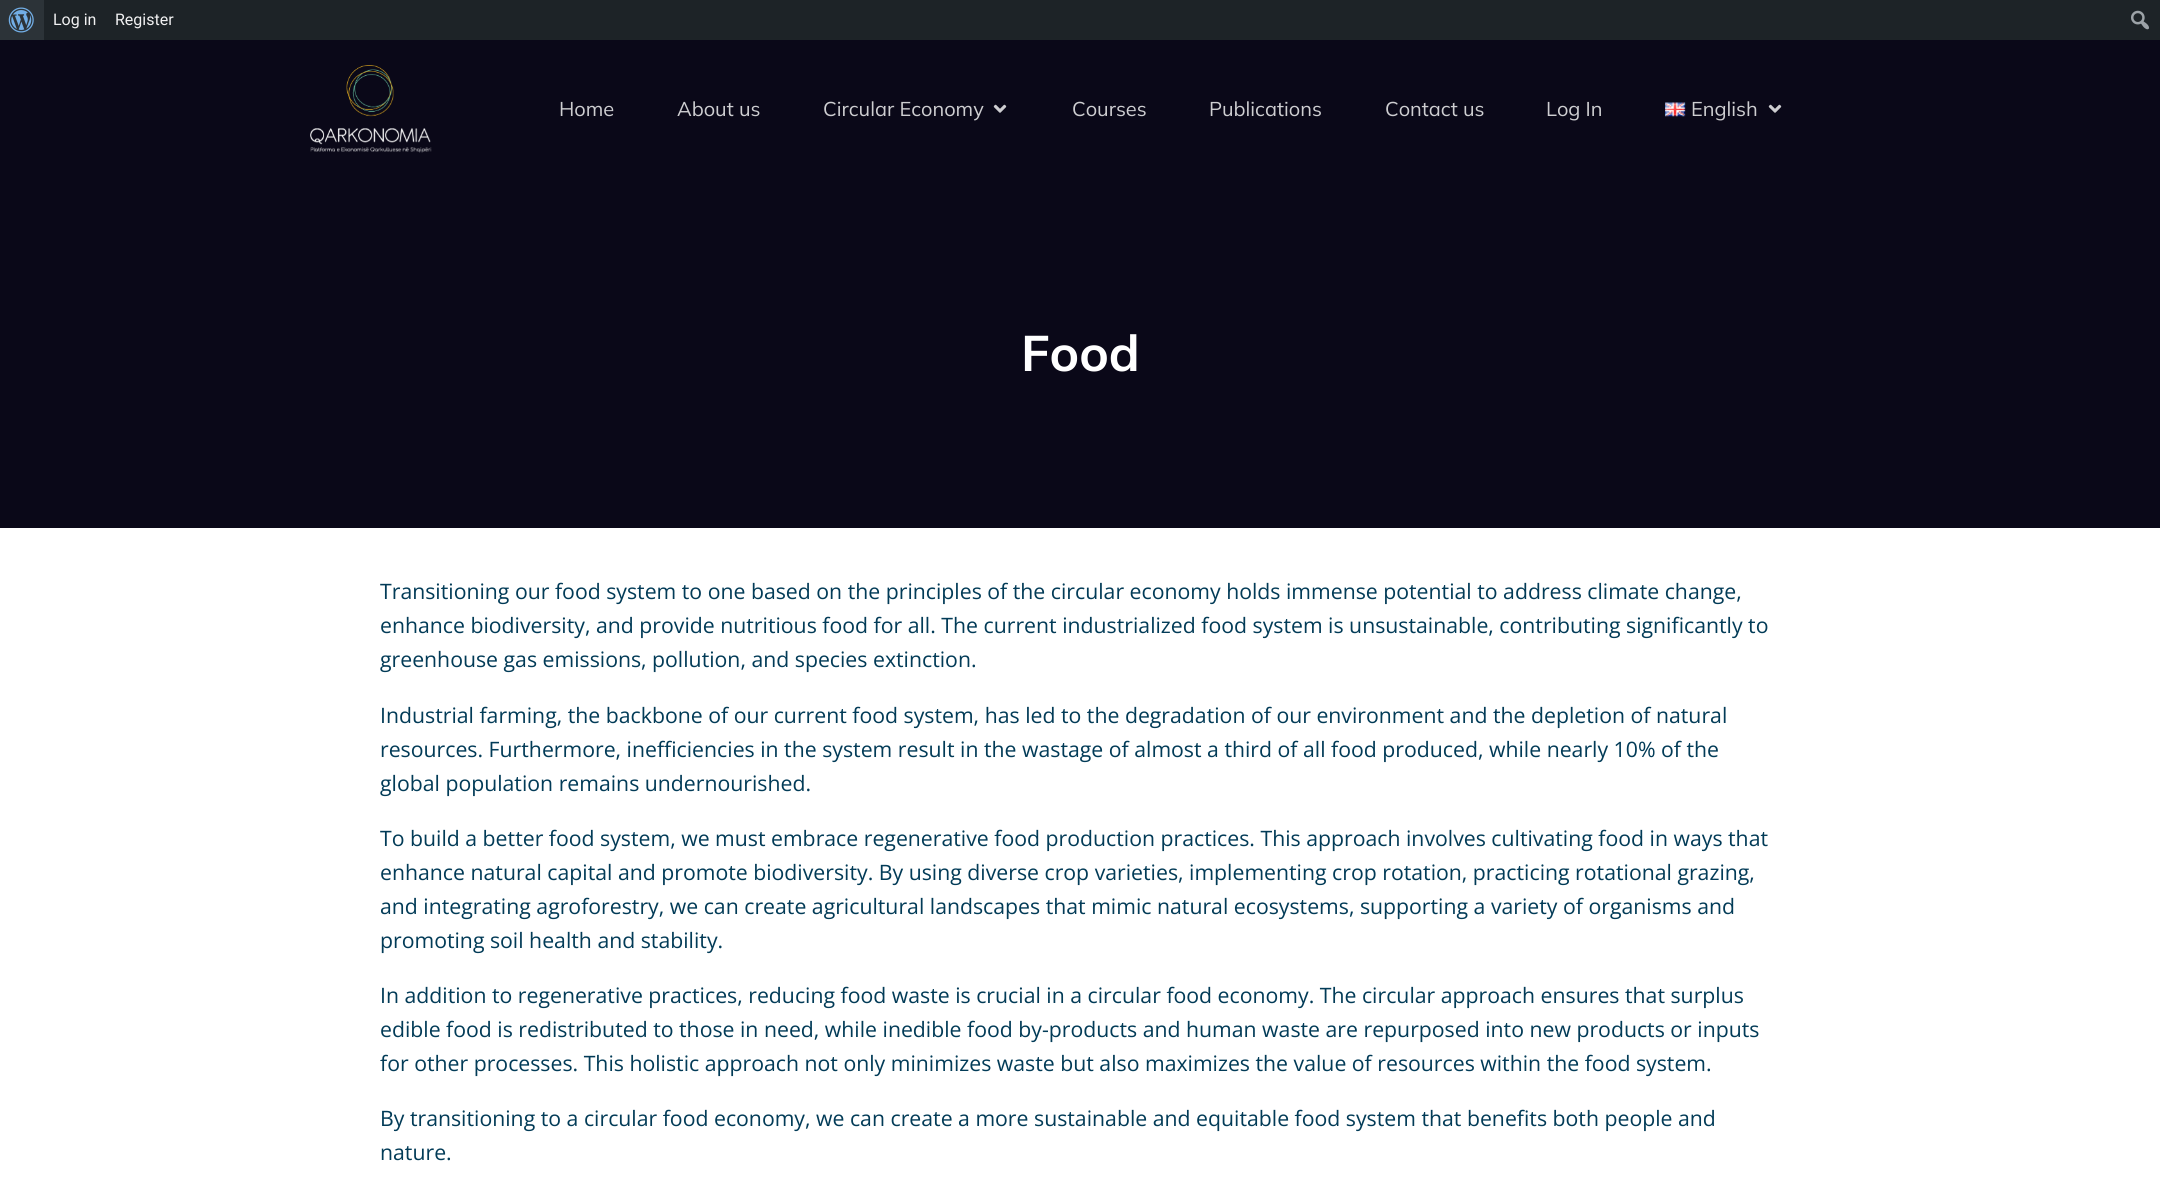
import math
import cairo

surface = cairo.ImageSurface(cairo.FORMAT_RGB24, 2160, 1200)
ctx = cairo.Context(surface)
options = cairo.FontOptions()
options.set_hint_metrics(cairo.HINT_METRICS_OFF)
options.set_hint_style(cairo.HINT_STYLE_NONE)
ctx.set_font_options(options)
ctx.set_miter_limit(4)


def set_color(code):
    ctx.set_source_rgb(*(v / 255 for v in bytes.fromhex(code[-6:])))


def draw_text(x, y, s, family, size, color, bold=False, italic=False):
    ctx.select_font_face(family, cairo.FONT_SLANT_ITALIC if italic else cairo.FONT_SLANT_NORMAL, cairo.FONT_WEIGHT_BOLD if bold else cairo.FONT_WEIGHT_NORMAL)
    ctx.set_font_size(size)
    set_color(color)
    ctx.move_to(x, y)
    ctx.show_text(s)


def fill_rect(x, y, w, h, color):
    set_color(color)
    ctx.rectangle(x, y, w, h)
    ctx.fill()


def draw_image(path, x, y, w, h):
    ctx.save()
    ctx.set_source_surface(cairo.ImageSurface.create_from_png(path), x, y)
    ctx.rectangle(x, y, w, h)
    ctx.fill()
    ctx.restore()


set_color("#ffffff")
ctx.paint()
fill_rect(44, 0, 2116, 40, "#1d2327")
fill_rect(0, 0, 44, 40, "#2c3338")
draw_image("assets/img1.png", 8, 7, 26, 26)
draw_text(53, 25, "Log in", "Roboto", 16, "#f0f0f1")
draw_text(115, 25, "Register", "Roboto", 16, "#f0f0f1")
draw_image("assets/img2.png", 2131, 10, 18, 20)
fill_rect(0, 40, 2160, 488, "#0a0818")
draw_image("assets/img3.png", 310, 65, 122, 88)
draw_text(559, 116, "Home", "Mulish", 20, "#ceced1")
draw_text(677, 116, "About us", "Mulish", 20, "#ceced1")
draw_text(823, 116, "Circular Economy", "Mulish", 20, "#ceced1")
draw_image("assets/img4.png", 993, 104, 14, 9)
draw_text(1072, 116, "Courses", "Mulish", 20, "#ceced1")
draw_text(1209, 116, "Publications", "Mulish", 20, "#ceced1")
draw_text(1385, 116, "Contact us", "Mulish", 20, "#ceced1")
draw_text(1546, 116, "Log In", "Mulish", 20, "#ceced1")
draw_image("assets/img5.png", 1665, 102, 21, 15)
draw_text(1691, 116, "English", "Mulish", 20, "#ceced1")
draw_image("assets/img4.png", 1768, 104, 14, 9)
draw_text(1021, 371, "Food", "Mulish", 50, "#ffffff", bold=True)
draw_text(380, 599, "Transitioning our food system to one based on the principles of the circular economy holds immense potential to address climate change,", "Open Sans", 21.25, "#023b57")
draw_text(380, 633, "enhance biodiversity, and provide nutritious food for all. The current industrialized food system is unsustainable, contributing significantly to", "Open Sans", 21.25, "#023b57")
draw_text(380, 667, "greenhouse gas emissions, pollution, and species extinction.", "Open Sans", 21.25, "#023b57")
draw_text(380, 723, "Industrial farming, the backbone of our current food system, has led to the degradation of our environment and the depletion of natural", "Open Sans", 21.25, "#023b57")
draw_text(380, 757, "resources. Furthermore, inefficiencies in the system result in the wastage of almost a third of all food produced, while nearly 10% of the", "Open Sans", 21.25, "#023b57")
draw_text(380, 791, "global population remains undernourished.", "Open Sans", 21.25, "#023b57")
draw_text(380, 846, "To build a better food system, we must embrace regenerative food production practices. This approach involves cultivating food in ways that", "Open Sans", 21.25, "#023b57")
draw_text(380, 880, "enhance natural capital and promote biodiversity. By using diverse crop varieties, implementing crop rotation, practicing rotational grazing,", "Open Sans", 21.25, "#023b57")
draw_text(380, 914, "and integrating agroforestry, we can create agricultural landscapes that mimic natural ecosystems, supporting a variety of organisms and", "Open Sans", 21.25, "#023b57")
draw_text(380, 948, "promoting soil health and stability.", "Open Sans", 21.25, "#023b57")
draw_text(380, 1003, "In addition to regenerative practices, reducing food waste is crucial in a circular food economy. The circular approach ensures that surplus", "Open Sans", 21.25, "#023b57")
draw_text(380, 1037, "edible food is redistributed to those in need, while inedible food by-products and human waste are repurposed into new products or inputs", "Open Sans", 21.25, "#023b57")
draw_text(380, 1071, "for other processes. This holistic approach not only minimizes waste but also maximizes the value of resources within the food system.", "Open Sans", 21.25, "#023b57")
draw_text(380, 1126, "By transitioning to a circular food economy, we can create a more sustainable and equitable food system that benefits both people and", "Open Sans", 21.25, "#023b57")
draw_text(380, 1160, "nature.", "Open Sans", 21.25, "#023b57")
surface.write_to_png("output.png")
